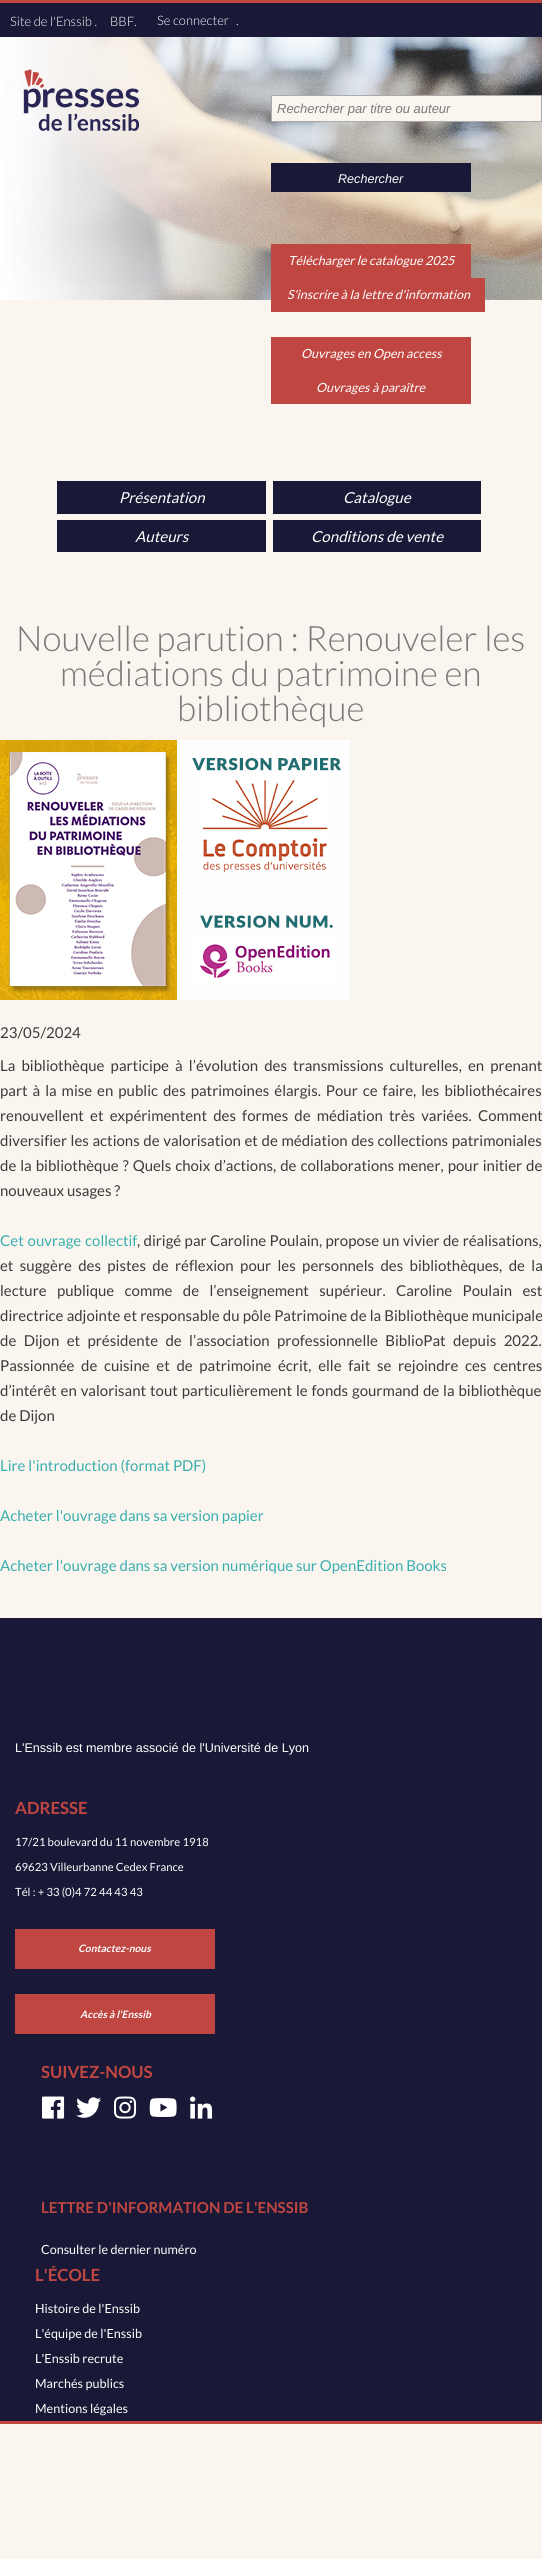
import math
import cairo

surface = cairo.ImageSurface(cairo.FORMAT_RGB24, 542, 2559)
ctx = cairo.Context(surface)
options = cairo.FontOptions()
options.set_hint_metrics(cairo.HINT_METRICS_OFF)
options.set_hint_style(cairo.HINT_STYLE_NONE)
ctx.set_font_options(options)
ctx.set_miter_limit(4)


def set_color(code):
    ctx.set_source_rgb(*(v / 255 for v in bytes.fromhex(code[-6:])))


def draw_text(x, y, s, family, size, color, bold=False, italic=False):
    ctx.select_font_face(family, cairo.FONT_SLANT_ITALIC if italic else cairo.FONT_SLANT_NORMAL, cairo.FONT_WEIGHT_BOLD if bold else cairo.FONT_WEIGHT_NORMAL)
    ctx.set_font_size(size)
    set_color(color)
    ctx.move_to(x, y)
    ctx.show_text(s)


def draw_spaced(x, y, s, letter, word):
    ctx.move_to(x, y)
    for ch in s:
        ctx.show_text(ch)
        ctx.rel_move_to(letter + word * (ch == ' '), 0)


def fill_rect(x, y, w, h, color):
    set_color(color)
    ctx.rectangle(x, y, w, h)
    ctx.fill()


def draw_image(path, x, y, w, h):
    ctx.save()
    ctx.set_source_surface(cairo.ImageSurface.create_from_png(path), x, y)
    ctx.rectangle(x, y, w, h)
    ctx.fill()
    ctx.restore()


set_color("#faf6ef")
ctx.paint()
draw_image("assets/img1.png", 0, 37, 542, 263)
fill_rect(0, 3, 542, 34, "#191937")
fill_rect(0, 0, 542, 3, "#c04641")
draw_text(10, 26, "Site de l'Enssib .", "Lato Light", 13, "#ffffff")
draw_text(110, 26, "BBF.", "Lato Light", 13, "#ffffff")
draw_text(157, 25, "Se connecter", "Lato Light", 13, "#ffffff")
draw_text(236, 25, ".", "Lato Light", 13, "#ffffff")
draw_image("assets/img2.png", 23, 69, 117, 62)
set_color("#faf6ef")
ctx.rectangle(271.5, 95.5, 270, 26)
ctx.fill_preserve()
set_color("#aaaaaa")
ctx.set_line_width(1)
ctx.stroke()
draw_text(277, 113, "Rechercher par titre ou auteur", "Liberation Sans", 13, "#797979", italic=True)
fill_rect(271, 163, 200, 29, "#191937")
draw_text(338, 183, "Rechercher", "Liberation Sans", 12.6, "#ffffff", italic=True)
fill_rect(271, 244, 200, 34, "#c04641")
draw_text(288, 265, "Télécharger le catalogue 2025", "Lato", 12.6, "#ffffff", italic=True)
fill_rect(271, 278, 214, 34, "#c04641")
draw_text(287, 299, "S'inscrire à la lettre d'information", "Lato", 12.6, "#ffffff", italic=True)
fill_rect(271, 337, 200, 67, "#c04641")
draw_text(301, 358, "Ouvrages en Open access", "Lato", 12.6, "#ffffff", italic=True)
draw_text(316, 392, "Ouvrages à paraître", "Lato", 12.6, "#ffffff", italic=True)
fill_rect(57, 481, 209, 33, "#191937")
draw_text(119, 503, "Présentation", "Lato", 15.1, "#ffffff", italic=True)
fill_rect(273, 481, 208, 33, "#191937")
draw_text(343, 503, "Catalogue", "Lato", 15.1, "#ffffff", italic=True)
fill_rect(57, 520, 209, 32, "#191937")
draw_text(135, 542, "Auteurs", "Lato", 15.1, "#ffffff", italic=True)
fill_rect(273, 520, 208, 32, "#191937")
draw_text(311, 542, "Conditions de vente", "Lato", 15.1, "#ffffff", italic=True)
draw_text(16, 651, "Nouvelle parution : Renouveler les", "Lato Light", 35, "#797979")
draw_text(60, 686, "médiations du patrimoine en", "Lato Light", 35, "#797979")
draw_text(177, 721, "bibliothèque", "Lato Light", 35, "#797979")
draw_image("assets/img3.png", 0, 740, 350, 260)
draw_text(0, 1038, "23/05/2024", "Lato", 15, "#3b3b3b")
draw_spaced(0, 1071, "La bibliothèque participe à l’évolution des transmissions culturelles, en prenant", 0, 3.25)
draw_spaced(0, 1096, "part à la mise en public des patrimoines élargis. Pour ce faire, les bibliothécaires", 0, 2.1)
draw_spaced(0, 1121, "renouvellent et expérimentent des formes de médiation très variées. Comment", 0, 3.25)
draw_spaced(0, 1146, "diversifier les actions de valorisation et de médiation des collections patrimoniales", 0, 0.75)
draw_spaced(0, 1171, "de la bibliothèque ? Quels choix d’actions, de collaborations mener, pour initier de", 0, 1.1)
draw_text(0, 1196, "nouveaux usages ?", "Lato", 15, "#3b3b3b")
set_color("#38aeae")
draw_spaced(0, 1246, "Cet ouvrage collectif", 0, 1)
set_color("#3b3b3b")
draw_spaced(137, 1246, ", dirigé par Caroline Poulain, propose un vivier de réalisations,", 0, 0.5)
draw_spaced(0, 1271, "et suggère des pistes de réflexion pour les personnels des bibliothèques, de la", 0, 3.5)
draw_spaced(0, 1296, "lecture publique comme de l’enseignement supérieur. Caroline Poulain est", 0, 7.5)
draw_spaced(0, 1321, "directrice adjointe et responsable du pôle Patrimoine de la Bibliothèque municipale", 0, 0.25)
draw_spaced(0, 1346, "de Dijon et présidente de l’association professionnelle BiblioPat depuis 2022.", 0, 4.5)
draw_spaced(0, 1371, "Passionnée de cuisine et de patrimoine écrit, elle fait se rejoindre ces centres", 0, 3.75)
draw_spaced(0, 1396, "d’intérêt en valorisant tout particulièrement le fonds gourmand de la bibliothèque", 0, 1)
draw_text(0, 1421, "de Dijon", "Lato", 15, "#3b3b3b")
draw_text(0, 1471, "Lire l'introduction (format PDF)", "Lato", 15, "#38aeae")
draw_text(0, 1521, "Acheter l'ouvrage dans sa version papier", "Lato", 15, "#38aeae")
draw_text(0, 1571, "Acheter l'ouvrage dans sa version numérique sur OpenEdition Books", "Lato", 15, "#38aeae")
fill_rect(0, 1618, 542, 803, "#191937")
fill_rect(0, 2421, 542, 3, "#c04641")
draw_text(15, 1752, "L'Enssib est membre associé de l'Université de Lyon", "Liberation Sans", 12.6, "#ffffff")
draw_text(15, 1814, "ADRESSE", "Lato", 16.75, "#c04641", bold=True)
draw_text(15, 1846, "17/21 boulevard du 11 novembre 1918", "Lato", 11.3, "#ffffff")
draw_text(15, 1871, "69623 Villeurbanne Cedex France", "Lato", 11.3, "#ffffff")
draw_text(15, 1896, "Tél : + 33 (0)4 72 44 43 43", "Lato", 11.3, "#ffffff")
fill_rect(15, 1929, 200, 40, "#c04641")
draw_text(78, 1952, "Contactez-nous", "Lato", 10.25, "#ffffff", bold=True, italic=True)
fill_rect(15, 1994, 200, 40, "#c04641")
draw_text(80, 2018, "Accès à l'Enssib", "Lato", 10.25, "#ffffff", bold=True, italic=True)
draw_text(41, 2078, "SUIVEZ-NOUS", "Lato", 16.75, "#c04641", bold=True)
draw_image("assets/img4.png", 42, 2096, 23, 23)
draw_image("assets/img5.png", 76, 2097, 25, 21)
draw_image("assets/img6.png", 114, 2096, 23, 23)
draw_image("assets/img7.png", 149, 2098, 28, 19)
draw_image("assets/img8.png", 190, 2096, 23, 23)
draw_text(41, 2213, "LETTRE D'INFORMATION DE L'ENSSIB", "Lato", 15.1, "#c04641", bold=True)
draw_text(41, 2254, "Consulter le dernier numéro", "Lato", 12.6, "#ffffff")
draw_text(35, 2281, "L'ÉCOLE", "Lato", 16.75, "#c04641", bold=True)
draw_text(35, 2313, "Histoire de l'Enssib", "Lato", 12.6, "#ffffff")
draw_text(35, 2338, "L'équipe de l'Enssib", "Lato", 12.6, "#ffffff")
draw_text(35, 2363, "L'Enssib recrute", "Lato", 12.6, "#ffffff")
draw_text(35, 2388, "Marchés publics", "Lato", 12.6, "#ffffff")
draw_text(35, 2413, "Mentions légales", "Lato", 12.6, "#ffffff")
surface.write_to_png("output.png")
